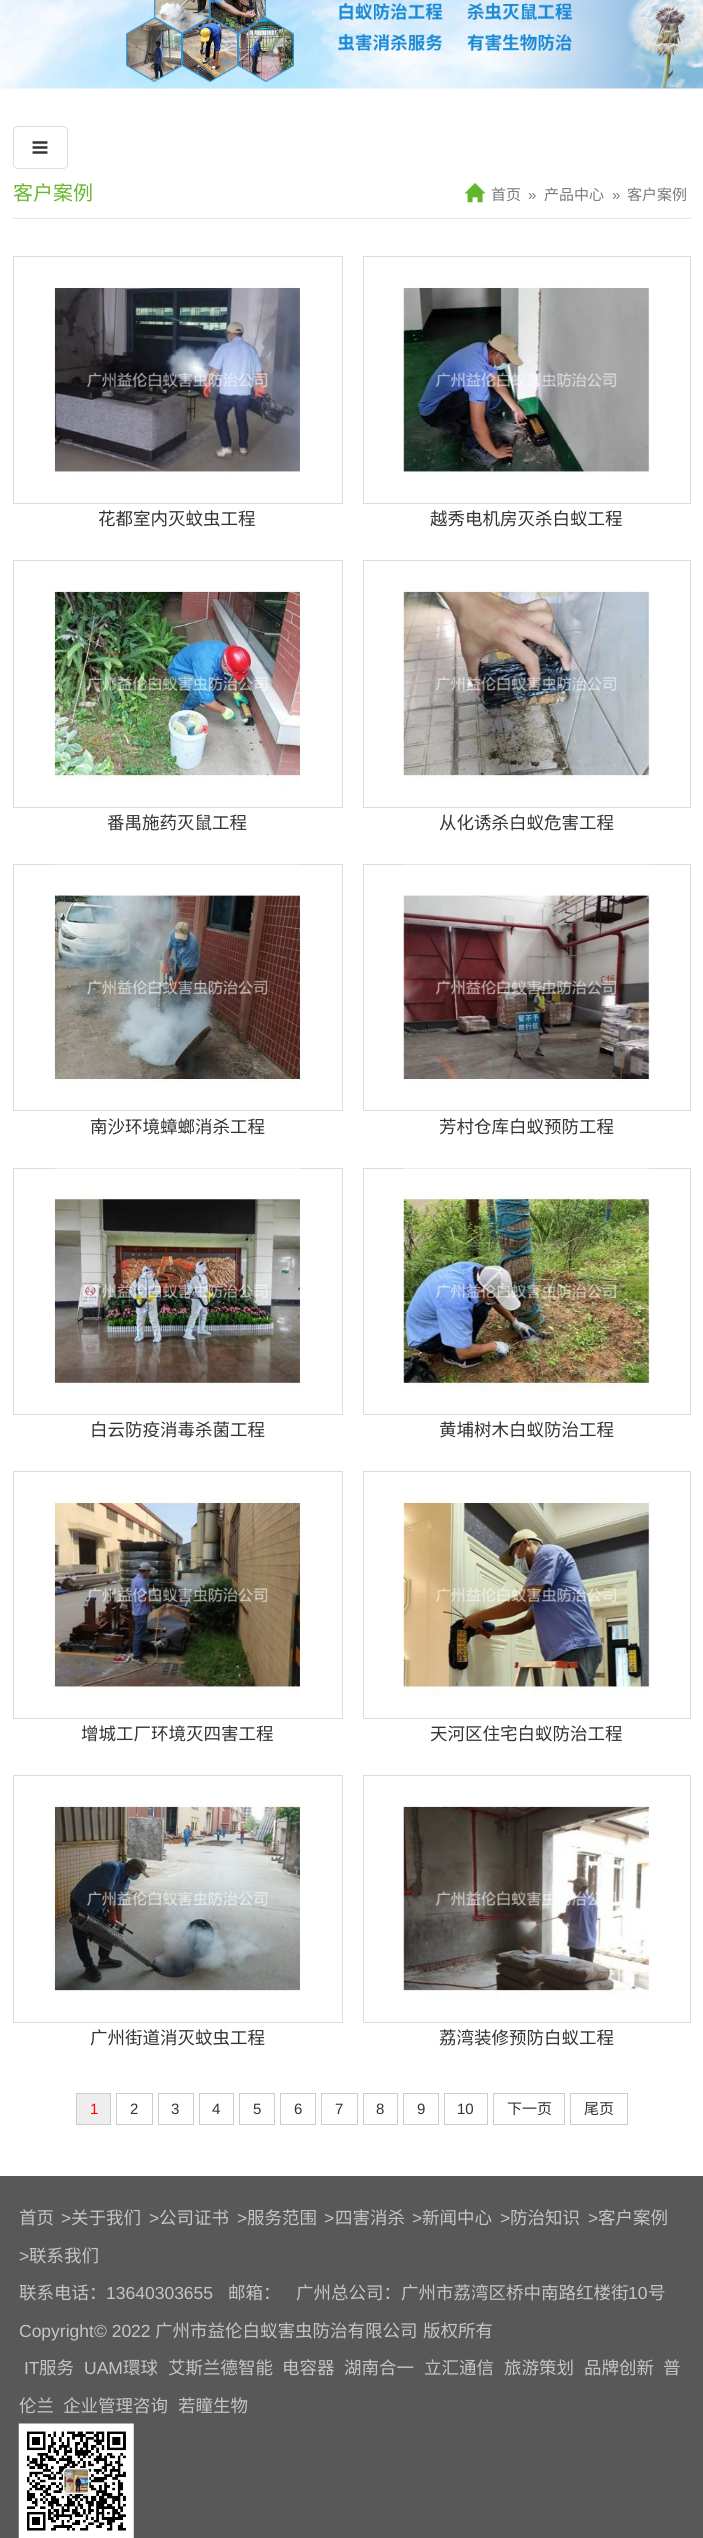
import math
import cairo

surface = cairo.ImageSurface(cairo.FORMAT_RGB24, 703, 2538)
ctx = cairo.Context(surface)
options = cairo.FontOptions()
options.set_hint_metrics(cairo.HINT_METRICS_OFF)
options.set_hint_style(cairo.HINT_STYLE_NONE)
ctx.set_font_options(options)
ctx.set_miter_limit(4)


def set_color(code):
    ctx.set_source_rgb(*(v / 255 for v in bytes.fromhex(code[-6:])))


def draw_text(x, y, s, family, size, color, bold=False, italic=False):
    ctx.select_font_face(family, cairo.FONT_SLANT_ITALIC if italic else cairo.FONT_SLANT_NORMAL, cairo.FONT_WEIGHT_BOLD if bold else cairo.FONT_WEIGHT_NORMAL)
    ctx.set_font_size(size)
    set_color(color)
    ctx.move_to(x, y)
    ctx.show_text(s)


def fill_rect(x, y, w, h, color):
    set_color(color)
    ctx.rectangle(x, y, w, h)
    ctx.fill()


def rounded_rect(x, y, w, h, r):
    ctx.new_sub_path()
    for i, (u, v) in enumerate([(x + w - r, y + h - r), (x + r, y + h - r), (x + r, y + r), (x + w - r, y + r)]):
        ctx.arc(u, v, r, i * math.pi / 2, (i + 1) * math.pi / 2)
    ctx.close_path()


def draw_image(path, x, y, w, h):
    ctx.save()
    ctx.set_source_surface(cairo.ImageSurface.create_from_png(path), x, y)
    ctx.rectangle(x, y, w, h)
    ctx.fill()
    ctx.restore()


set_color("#ffffff")
ctx.paint()
draw_image("assets/img1.png", 0, 0, 703, 89)
rounded_rect(13.5, 126.5, 54, 42, 4.5)
set_color("#dddddd")
ctx.set_line_width(1)
ctx.stroke()
draw_image("assets/img2.png", 32, 141, 16, 13)
fill_rect(13, 218, 678, 1, "#e5e5e5")
draw_text(13, 200, "客户案例", "Noto Sans CJK SC", 20, "#66b72e")
draw_image("assets/img3.png", 465, 183, 20, 20)
draw_text(491, 200, "首页", "Noto Sans CJK SC", 15, "#797979")
draw_text(528, 200, "»", "Liberation Sans", 15, "#797979")
draw_text(544, 200, "产品中心", "Noto Sans CJK SC", 15, "#797979")
draw_text(612, 200, "»", "Liberation Sans", 15, "#797979")
draw_text(627, 200, "客户案例", "Noto Sans CJK SC", 15, "#797979")
ctx.rectangle(13.5, 256.5, 329, 247)
set_color("#dcdcdc")
ctx.stroke()
draw_image("assets/img4.png", 54, 285, 246, 188)
draw_text(98, 525, "花都室内灭蚊虫工程", "Noto Sans CJK SC", 17.5, "#333333")
ctx.rectangle(363.5, 256.5, 327, 247)
set_color("#dcdcdc")
ctx.stroke()
draw_image("assets/img5.png", 403, 285, 247, 194)
draw_text(430, 525, "越秀电机房灭杀白蚁工程", "Noto Sans CJK SC", 17.5, "#333333")
ctx.rectangle(13.5, 560.5, 329, 247)
set_color("#dcdcdc")
ctx.stroke()
draw_image("assets/img6.png", 54, 584, 246, 201)
draw_text(107, 829, "番禺施药灭鼠工程", "Noto Sans CJK SC", 17.5, "#333333")
ctx.rectangle(363.5, 560.5, 327, 247)
set_color("#dcdcdc")
ctx.stroke()
draw_image("assets/img7.png", 403, 583, 247, 196)
draw_text(439, 829, "从化诱杀白蚁危害工程", "Noto Sans CJK SC", 17.5, "#333333")
ctx.rectangle(13.5, 864.5, 329, 246)
set_color("#dcdcdc")
ctx.stroke()
draw_image("assets/img8.png", 54, 864, 246, 222)
draw_text(90, 1133, "南沙环境蟑螂消杀工程", "Noto Sans CJK SC", 17.5, "#333333")
ctx.rectangle(363.5, 864.5, 327, 246)
set_color("#dcdcdc")
ctx.stroke()
draw_image("assets/img9.png", 403, 864, 247, 223)
draw_text(439, 1133, "芳村仓库白蚁预防工程", "Noto Sans CJK SC", 17.5, "#333333")
ctx.rectangle(13.5, 1168.5, 329, 246)
set_color("#dcdcdc")
ctx.stroke()
draw_image("assets/img10.png", 54, 1168, 246, 222)
draw_text(90, 1436, "白云防疫消毒杀菌工程", "Noto Sans CJK SC", 17.5, "#333333")
ctx.rectangle(363.5, 1168.5, 327, 246)
set_color("#dcdcdc")
ctx.stroke()
draw_image("assets/img11.png", 403, 1168, 247, 225)
draw_text(439, 1436, "黄埔树木白蚁防治工程", "Noto Sans CJK SC", 17.5, "#333333")
ctx.rectangle(13.5, 1471.5, 329, 247)
set_color("#dcdcdc")
ctx.stroke()
draw_image("assets/img12.png", 54, 1495, 246, 201)
draw_text(81, 1740, "增城工厂环境灭四害工程", "Noto Sans CJK SC", 17.5, "#333333")
ctx.rectangle(363.5, 1471.5, 327, 247)
set_color("#dcdcdc")
ctx.stroke()
draw_image("assets/img13.png", 403, 1495, 247, 201)
draw_text(430, 1740, "天河区住宅白蚁防治工程", "Noto Sans CJK SC", 17.5, "#333333")
ctx.rectangle(13.5, 1775.5, 329, 247)
set_color("#dcdcdc")
ctx.stroke()
draw_image("assets/img14.png", 54, 1799, 246, 193)
draw_text(90, 2044, "广州街道消灭蚊虫工程", "Noto Sans CJK SC", 17.5, "#333333")
ctx.rectangle(363.5, 1775.5, 327, 247)
set_color("#dcdcdc")
ctx.stroke()
draw_image("assets/img15.png", 403, 1801, 247, 199)
draw_text(439, 2044, "荔湾装修预防白蚁工程", "Noto Sans CJK SC", 17.5, "#333333")
set_color("#eeeeee")
ctx.rectangle(76.5, 2093.5, 34, 31)
ctx.fill_preserve()
set_color("#cccccc")
ctx.stroke()
draw_text(90, 2114, "1", "Liberation Sans", 15, "#ff0000")
ctx.rectangle(116.5, 2093.5, 36, 31)
set_color("#cccccc")
ctx.stroke()
draw_text(130, 2114, "2", "Liberation Sans", 15, "#333333")
ctx.rectangle(158.5, 2093.5, 35, 31)
set_color("#cccccc")
ctx.stroke()
draw_text(171, 2114, "3", "Liberation Sans", 15, "#333333")
ctx.rectangle(199.5, 2093.5, 34, 31)
set_color("#cccccc")
ctx.stroke()
draw_text(212, 2114, "4", "Liberation Sans", 15, "#333333")
ctx.rectangle(239.5, 2093.5, 35, 31)
set_color("#cccccc")
ctx.stroke()
draw_text(253, 2114, "5", "Liberation Sans", 15, "#333333")
ctx.rectangle(280.5, 2093.5, 35, 31)
set_color("#cccccc")
ctx.stroke()
draw_text(294, 2114, "6", "Liberation Sans", 15, "#333333")
ctx.rectangle(321.5, 2093.5, 36, 31)
set_color("#cccccc")
ctx.stroke()
draw_text(335, 2114, "7", "Liberation Sans", 15, "#333333")
ctx.rectangle(363.5, 2093.5, 34, 31)
set_color("#cccccc")
ctx.stroke()
draw_text(376, 2114, "8", "Liberation Sans", 15, "#333333")
ctx.rectangle(403.5, 2093.5, 35, 31)
set_color("#cccccc")
ctx.stroke()
draw_text(417, 2114, "9", "Liberation Sans", 15, "#333333")
ctx.rectangle(444.5, 2093.5, 43, 31)
set_color("#cccccc")
ctx.stroke()
draw_text(457, 2114, "10", "Liberation Sans", 15, "#333333")
ctx.rectangle(493.5, 2093.5, 71, 31)
set_color("#cccccc")
ctx.stroke()
draw_text(507, 2114, "下一页", "Noto Sans CJK SC", 15, "#333333")
ctx.rectangle(570.5, 2093.5, 57, 31)
set_color("#cccccc")
ctx.stroke()
draw_text(584, 2114, "尾页", "Noto Sans CJK SC", 15, "#333333")
fill_rect(0, 2176, 703, 362, "#585858")
draw_text(19, 2224, "首页", "Noto Sans CJK SC", 17.5, "#c5c5c5")
draw_text(61, 2224, ">", "Liberation Sans", 17.5, "#c5c5c5")
draw_text(71, 2224, "关于我们", "Noto Sans CJK SC", 17.5, "#c5c5c5")
draw_text(149, 2224, ">", "Liberation Sans", 17.5, "#c5c5c5")
draw_text(159, 2224, "公司证书", "Noto Sans CJK SC", 17.5, "#c5c5c5")
draw_text(237, 2224, ">", "Liberation Sans", 17.5, "#c5c5c5")
draw_text(247, 2224, "服务范围", "Noto Sans CJK SC", 17.5, "#c5c5c5")
draw_text(324, 2224, ">", "Liberation Sans", 17.5, "#c5c5c5")
draw_text(335, 2224, "四害消杀", "Noto Sans CJK SC", 17.5, "#c5c5c5")
draw_text(412, 2224, ">", "Liberation Sans", 17.5, "#c5c5c5")
draw_text(422, 2224, "新闻中心", "Noto Sans CJK SC", 17.5, "#c5c5c5")
draw_text(500, 2224, ">", "Liberation Sans", 17.5, "#c5c5c5")
draw_text(510, 2224, "防治知识", "Noto Sans CJK SC", 17.5, "#c5c5c5")
draw_text(588, 2224, ">", "Liberation Sans", 17.5, "#c5c5c5")
draw_text(598, 2224, "客户案例", "Noto Sans CJK SC", 17.5, "#c5c5c5")
draw_text(19, 2262, ">", "Liberation Sans", 17.5, "#c5c5c5")
draw_text(29, 2262, "联系我们", "Noto Sans CJK SC", 17.5, "#c5c5c5")
draw_text(19, 2299, "联系电话：", "Noto Sans CJK SC", 17.5, "#c5c5c5")
draw_text(106, 2299, "13640303655", "Liberation Sans", 17.5, "#c5c5c5")
draw_text(228, 2299, "邮箱：", "Noto Sans CJK SC", 17.5, "#c5c5c5")
draw_text(296, 2299, "广州总公司：广州市荔湾区桥中南路红楼街", "Noto Sans CJK SC", 17.5, "#c5c5c5")
draw_text(628, 2299, "10", "Liberation Sans", 17.5, "#c5c5c5")
draw_text(648, 2299, "号", "Noto Sans CJK SC", 17.5, "#c5c5c5")
draw_text(19, 2337, "Copyright© 2022", "Liberation Sans", 17.5, "#c5c5c5")
draw_text(155, 2337, "广州市益伦白蚁害虫防治有限公司", "Noto Sans CJK SC", 17.5, "#c5c5c5")
draw_text(423, 2337, "版权所有", "Noto Sans CJK SC", 17.5, "#c5c5c5")
draw_text(24, 2374, "IT", "Liberation Sans", 17.5, "#c5c5c5")
draw_text(39, 2374, "服务", "Noto Sans CJK SC", 17.5, "#c5c5c5")
draw_text(84, 2374, "UAM", "Liberation Sans", 17.5, "#c5c5c5")
draw_text(123, 2374, "環球", "Noto Sans CJK SC", 17.5, "#c5c5c5")
draw_text(168, 2374, "艾斯兰德智能", "Noto Sans CJK SC", 17.5, "#c5c5c5")
draw_text(282, 2374, "电容器", "Noto Sans CJK SC", 17.5, "#c5c5c5")
draw_text(344, 2374, "湖南合一", "Noto Sans CJK SC", 17.5, "#c5c5c5")
draw_text(424, 2374, "立汇通信", "Noto Sans CJK SC", 17.5, "#c5c5c5")
draw_text(504, 2374, "旅游策划", "Noto Sans CJK SC", 17.5, "#c5c5c5")
draw_text(584, 2374, "品牌创新", "Noto Sans CJK SC", 17.5, "#c5c5c5")
draw_text(663, 2374, "普", "Noto Sans CJK SC", 17.5, "#c5c5c5")
draw_text(19, 2412, "伦兰", "Noto Sans CJK SC", 17.5, "#c5c5c5")
draw_text(63, 2412, "企业管理咨询", "Noto Sans CJK SC", 17.5, "#c5c5c5")
draw_text(178, 2412, "若瞳生物", "Noto Sans CJK SC", 17.5, "#c5c5c5")
draw_image("assets/img16.png", 18, 2423, 116, 115)
surface.write_to_png("output.png")
